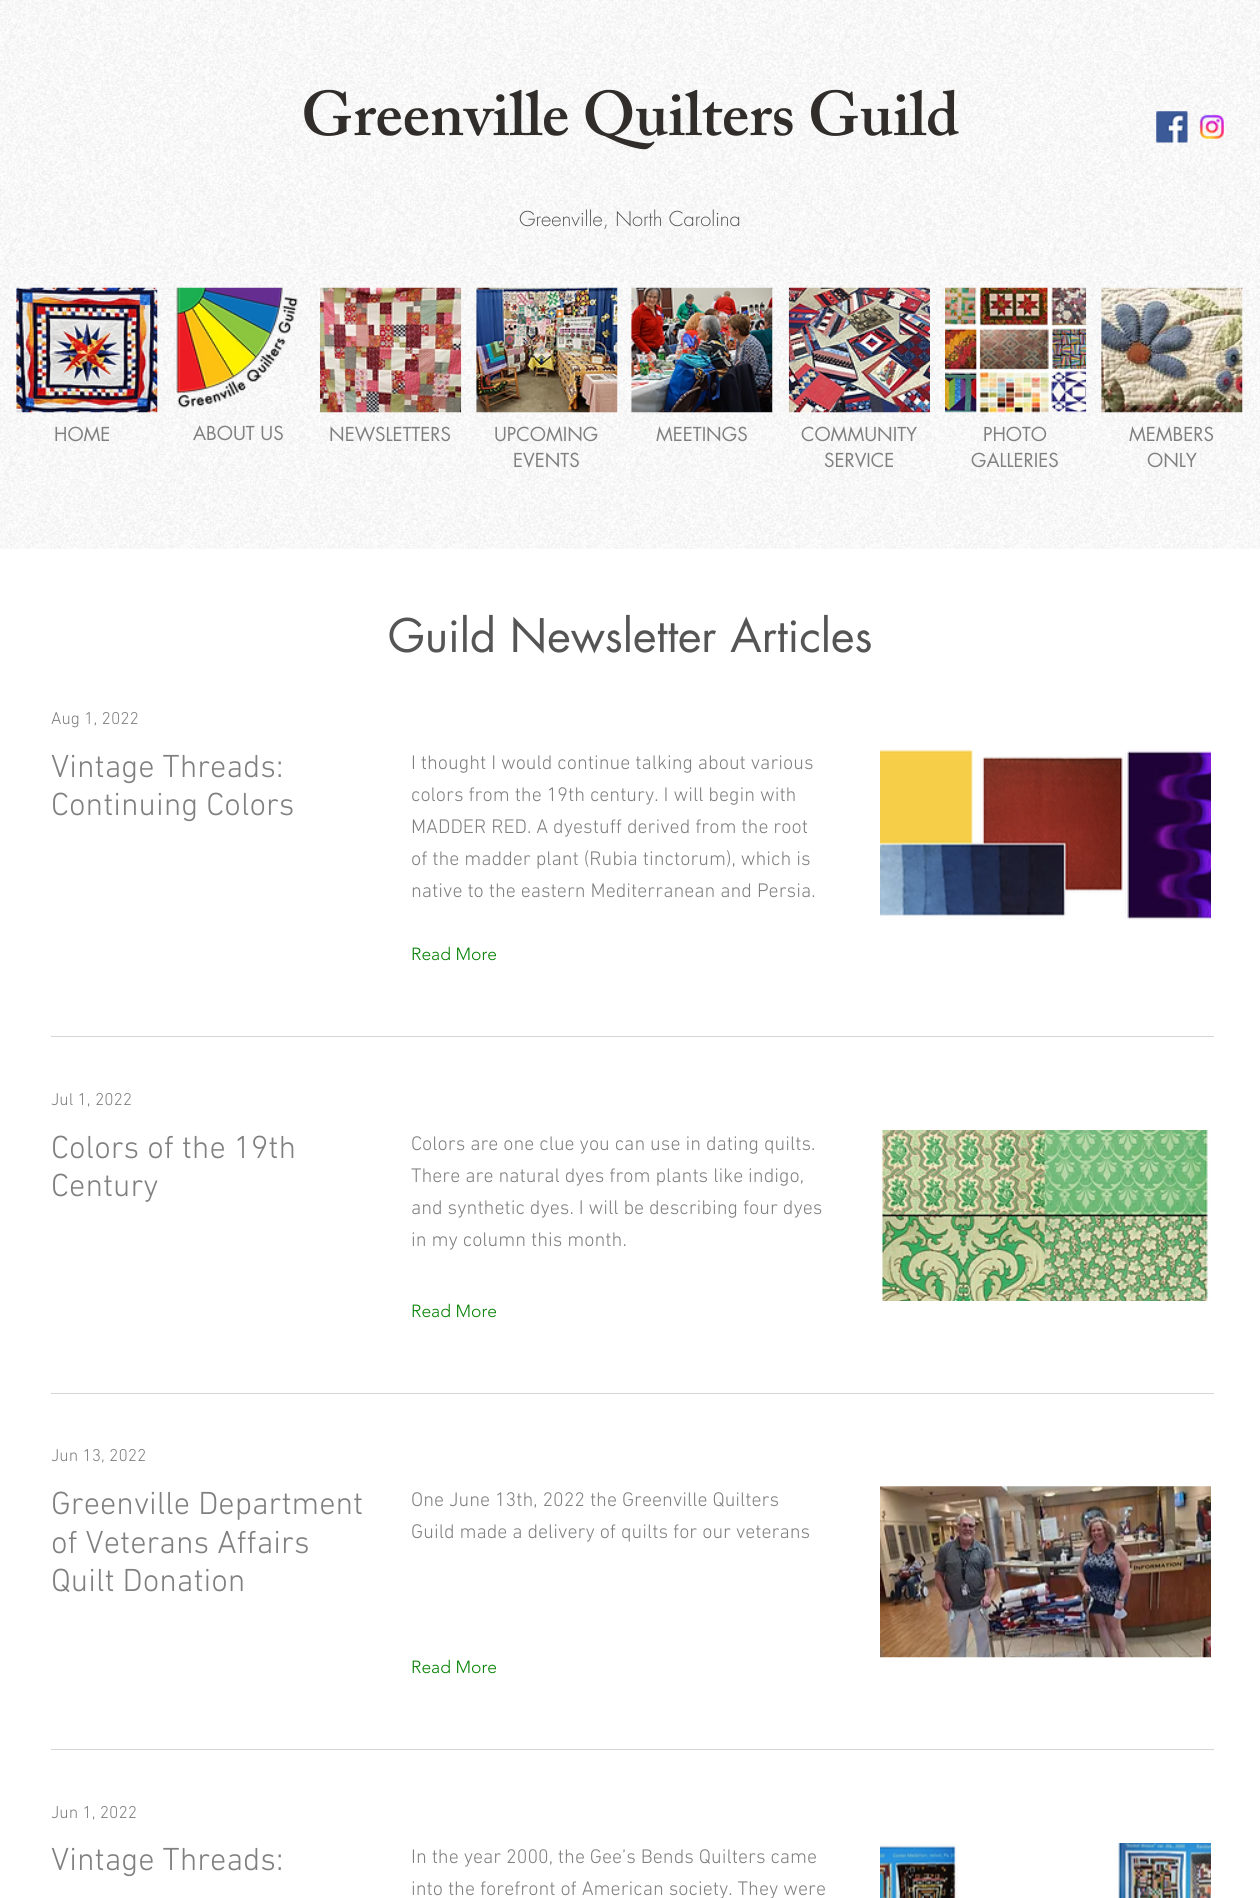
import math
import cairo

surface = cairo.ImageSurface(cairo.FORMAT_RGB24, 1260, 1898)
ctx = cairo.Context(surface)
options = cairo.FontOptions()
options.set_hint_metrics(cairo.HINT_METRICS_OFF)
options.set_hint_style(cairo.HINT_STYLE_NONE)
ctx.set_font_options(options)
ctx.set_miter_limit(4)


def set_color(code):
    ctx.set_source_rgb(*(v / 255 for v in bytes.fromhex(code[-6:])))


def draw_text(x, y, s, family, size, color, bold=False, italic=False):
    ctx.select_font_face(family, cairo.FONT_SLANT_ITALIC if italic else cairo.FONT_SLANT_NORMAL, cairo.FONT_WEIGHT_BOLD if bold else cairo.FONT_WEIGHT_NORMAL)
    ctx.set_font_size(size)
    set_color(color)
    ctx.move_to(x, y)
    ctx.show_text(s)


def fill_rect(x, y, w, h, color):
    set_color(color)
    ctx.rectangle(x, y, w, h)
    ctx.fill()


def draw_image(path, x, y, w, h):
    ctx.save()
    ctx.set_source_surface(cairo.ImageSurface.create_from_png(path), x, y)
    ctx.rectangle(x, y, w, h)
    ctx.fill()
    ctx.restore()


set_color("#ffffff")
ctx.paint()
draw_image("assets/img1.png", 0, 0, 1260, 549)
draw_text(301, 135, "Greenville Quilters Guild", "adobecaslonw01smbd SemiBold", 62.5, "#302d2b")
draw_image("assets/img2.png", 1156, 111, 32, 32)
draw_image("assets/img3.png", 1199, 114, 25, 25)
draw_text(519, 226, "Greenville, North Carolina", "futura Light", 20, "#555555")
draw_image("assets/img4.png", 16, 287, 142, 126)
draw_text(54, 441, "HOME", "futura", 18.75, "#808080")
draw_image("assets/img5.png", 176, 287, 122, 121)
draw_text(193, 440, "ABOUT US", "futura", 18.75, "#808080")
draw_image("assets/img6.png", 320, 287, 142, 126)
draw_text(329, 441, "NEWSLETTERS", "futura", 18.75, "#808080")
draw_image("assets/img7.png", 476, 287, 142, 126)
draw_text(494, 441, "UPCOMING", "futura", 18.75, "#808080")
draw_text(513, 467, "EVENTS", "futura", 18.75, "#808080")
draw_image("assets/img8.png", 631, 287, 142, 126)
draw_text(656, 441, "MEETINGS", "futura", 18.75, "#808080")
draw_image("assets/img9.png", 788, 287, 142, 126)
draw_text(801, 441, "COMMUNITY", "futura", 18.75, "#808080")
draw_text(824, 467, "SERVICE", "futura", 18.75, "#808080")
draw_image("assets/img10.png", 945, 287, 142, 126)
draw_text(983, 441, "PHOTO", "futura", 18.75, "#808080")
draw_text(971, 467, "GALLERIES", "futura", 18.75, "#808080")
draw_image("assets/img11.png", 1101, 287, 142, 126)
draw_text(1129, 441, "MEMBERS", "futura", 18.75, "#808080")
draw_text(1147, 467, "ONLY", "futura", 18.75, "#808080")
draw_text(388, 652, "Guild Newsletter Articles", "futura", 45, "#555555")
draw_text(51, 724, "Aug 1, 2022", "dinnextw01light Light", 17.5, "#808080")
draw_text(51, 777, "Vintage Threads:", "dinnextw01light Light", 32.5, "#808080")
draw_text(51, 815, "Continuing Colors", "dinnextw01light Light", 32.5, "#808080")
draw_text(411, 769, "I thought I would continue talking about various", "dinnextw01light Light", 20, "#808080")
draw_text(411, 801, "colors from the 19th century. I will begin with", "dinnextw01light Light", 20, "#808080")
draw_text(411, 833, "MADDER RED. A dyestuff derived from the root", "dinnextw01light Light", 20, "#808080")
draw_text(411, 865, "of the madder plant (Rubia tinctorum), which is", "dinnextw01light Light", 20, "#808080")
draw_text(411, 897, "native to the eastern Mediterranean and Persia.", "dinnextw01light Light", 20, "#808080")
draw_image("assets/img12.png", 880, 749, 331, 171)
draw_text(411, 960, "Read More", "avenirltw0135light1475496 Light", 17.5, "#068103")
fill_rect(51, 1036, 1163, 1, "#d5d5d5")
draw_text(51, 1105, "Jul 1, 2022", "dinnextw01light Light", 17.5, "#808080")
draw_text(51, 1158, "Colors of the 19th", "dinnextw01light Light", 32.5, "#808080")
draw_text(51, 1196, "Century", "dinnextw01light Light", 32.5, "#808080")
draw_text(411, 1150, "Colors are one clue you can use in dating quilts.", "dinnextw01light Light", 20, "#808080")
draw_text(411, 1182, "There are natural dyes from plants like indigo,", "dinnextw01light Light", 20, "#808080")
draw_text(411, 1214, "and synthetic dyes. I will be describing four dyes", "dinnextw01light Light", 20, "#808080")
draw_text(411, 1246, "in my column this month.", "dinnextw01light Light", 20, "#808080")
draw_image("assets/img13.png", 881, 1130, 329, 171)
draw_text(411, 1317, "Read More", "avenirltw0135light1475496 Light", 17.5, "#068103")
fill_rect(51, 1393, 1163, 1, "#d5d5d5")
draw_text(51, 1461, "Jun 13, 2022", "dinnextw01light Light", 17.5, "#808080")
draw_text(51, 1514, "Greenville Department", "dinnextw01light Light", 32.5, "#808080")
draw_text(51, 1553, "of Veterans Affairs", "dinnextw01light Light", 32.5, "#808080")
draw_text(51, 1591, "Quilt Donation", "dinnextw01light Light", 32.5, "#808080")
draw_text(411, 1506, "One June 13th, 2022 the Greenville Quilters", "dinnextw01light Light", 20, "#808080")
draw_text(411, 1538, "Guild made a delivery of quilts for our veterans", "dinnextw01light Light", 20, "#808080")
draw_image("assets/img14.png", 880, 1486, 331, 172)
draw_text(411, 1673, "Read More", "avenirltw0135light1475496 Light", 17.5, "#068103")
fill_rect(51, 1749, 1163, 1, "#d5d5d5")
draw_text(51, 1818, "Jun 1, 2022", "dinnextw01light Light", 17.5, "#808080")
draw_text(51, 1870, "Vintage Threads:", "dinnextw01light Light", 32.5, "#808080")
draw_text(411, 1863, "In the year 2000, the Gee’s Bends Quilters came", "dinnextw01light Light", 20, "#808080")
draw_text(411, 1895, "into the forefront of American society. They were", "dinnextw01light Light", 20, "#808080")
draw_image("assets/img15.png", 880, 1843, 331, 55)
surface.write_to_png("output.png")
